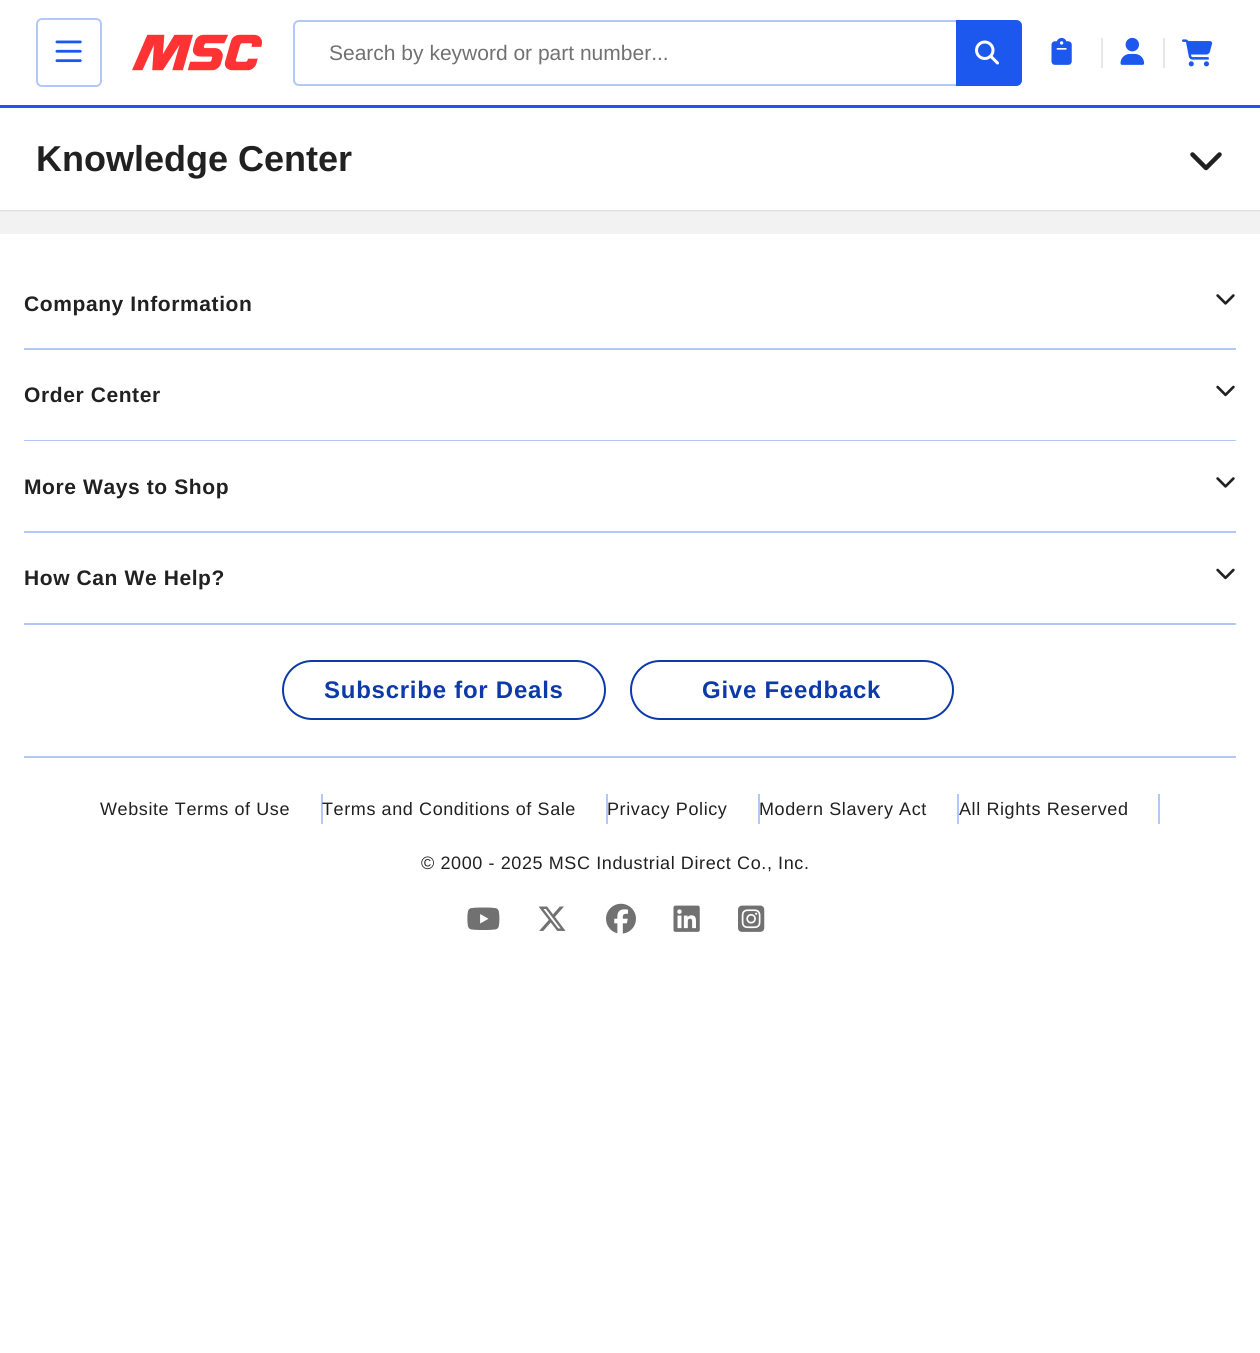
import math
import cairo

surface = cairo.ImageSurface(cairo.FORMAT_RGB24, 1260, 1353)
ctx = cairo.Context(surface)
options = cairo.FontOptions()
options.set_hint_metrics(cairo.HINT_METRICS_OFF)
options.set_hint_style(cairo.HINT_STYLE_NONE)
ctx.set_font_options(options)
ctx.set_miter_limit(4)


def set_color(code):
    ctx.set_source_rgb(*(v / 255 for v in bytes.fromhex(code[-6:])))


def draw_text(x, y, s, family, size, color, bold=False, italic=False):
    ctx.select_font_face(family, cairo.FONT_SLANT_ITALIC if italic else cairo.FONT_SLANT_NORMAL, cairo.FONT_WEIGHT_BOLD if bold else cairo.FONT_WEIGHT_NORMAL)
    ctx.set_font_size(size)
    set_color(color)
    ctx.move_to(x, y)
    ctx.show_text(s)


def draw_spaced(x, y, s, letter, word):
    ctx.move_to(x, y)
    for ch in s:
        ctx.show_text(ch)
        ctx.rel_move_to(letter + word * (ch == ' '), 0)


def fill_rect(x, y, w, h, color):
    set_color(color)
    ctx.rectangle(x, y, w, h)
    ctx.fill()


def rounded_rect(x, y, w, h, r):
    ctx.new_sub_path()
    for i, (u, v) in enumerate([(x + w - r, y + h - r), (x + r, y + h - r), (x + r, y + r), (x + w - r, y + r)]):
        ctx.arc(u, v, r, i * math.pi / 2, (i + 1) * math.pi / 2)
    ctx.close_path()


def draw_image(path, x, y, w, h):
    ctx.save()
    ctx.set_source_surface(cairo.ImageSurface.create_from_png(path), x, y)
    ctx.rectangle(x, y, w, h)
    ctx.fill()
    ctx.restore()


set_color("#ffffff")
ctx.paint()
fill_rect(0, 105, 1260, 3, "#1c58ee")
rounded_rect(37, 19, 64, 67, 5)
set_color("#b3c7f9")
ctx.stroke()
draw_image("assets/img1.png", 55, 40, 27, 23)
draw_image("assets/img2.png", 132, 34, 131, 37)
rounded_rect(294, 21, 727, 64, 5)
ctx.stroke()
draw_text(329, 60, "Search by keyword or part number...", "Liberation Sans", 21, "#717171")
set_color("#1c58ee")
ctx.new_path()
ctx.move_to(956, 20)
ctx.line_to(1016, 20)
ctx.curve_to(1019.5, 20, 1022, 22.5, 1022, 26)
ctx.line_to(1022, 80)
ctx.curve_to(1022, 83.5, 1019.5, 86, 1016, 86)
ctx.line_to(956, 86)
ctx.close_path()
ctx.fill()
draw_image("assets/img3.png", 975, 40, 24, 25)
draw_image("assets/img4.png", 1051, 37, 21, 28)
fill_rect(1101, 38, 2, 30, "#e5e7eb")
draw_image("assets/img5.png", 1120, 37, 25, 28)
fill_rect(1163, 38, 2, 30, "#e5e7eb")
draw_image("assets/img6.png", 1182, 39, 31, 28)
draw_text(36, 171, "Knowledge Center", "Liberation Sans", 36, "#212121", bold=True)
draw_image("assets/img7.png", 1190, 152, 32, 19)
gradient = cairo.LinearGradient(630, 210, 630, 234)
gradient.add_color_stop_rgba(0, 0.871, 0.871, 0.871, 1)
gradient.add_color_stop_rgba(0.1, 0.949, 0.949, 0.949, 1)
ctx.set_source(gradient)
ctx.rectangle(0, 210, 1260, 24)
ctx.fill()
fill_rect(24, 623, 1212, 2, "#b3c7f9")
fill_rect(24, 348, 1212, 2, "#b3c7f9")
ctx.set_font_size(21)
set_color("#212121")
draw_spaced(24, 311, "Company Information", 0.6, 0)
draw_image("assets/img8.png", 1216, 294, 19, 11)
fill_rect(24, 440, 1212, 1, "#b3c7f9")
set_color("#212121")
draw_spaced(24, 402, "Order Center", 0.6, 0)
draw_image("assets/img9.png", 1216, 385, 19, 12)
fill_rect(24, 531, 1212, 2, "#b3c7f9")
set_color("#212121")
draw_spaced(24, 494, "More Ways to Shop", 0.6, 0)
draw_image("assets/img8.png", 1216, 477, 19, 11)
draw_spaced(24, 585, "How Can We Help?", 0.6, 0)
draw_image("assets/img9.png", 1216, 568, 19, 12)
fill_rect(24, 756, 1212, 2, "#b3c7f9")
rounded_rect(283, 661, 322, 58, 29)
set_color("#0d3aa9")
ctx.stroke()
ctx.set_font_size(24)
draw_spaced(324, 698, "Subscribe for Deals", 0.75, 0)
rounded_rect(631, 661, 322, 58, 29)
ctx.stroke()
draw_spaced(702, 698, "Give Feedback", 0.75, 0)
fill_rect(321, 794, 2, 30, "#b3c7f9")
ctx.select_font_face("Liberation Sans")
ctx.set_font_size(18)
set_color("#212121")
draw_spaced(100, 815, "Website Terms of Use", 0.6, 0)
fill_rect(606, 794, 2, 30, "#b3c7f9")
set_color("#212121")
draw_spaced(322, 815, "Terms and Conditions of Sale", 0.6, 0)
fill_rect(758, 794, 2, 30, "#b3c7f9")
set_color("#212121")
draw_spaced(607, 815, "Privacy Policy", 0.6, 0)
fill_rect(957, 794, 2, 30, "#b3c7f9")
set_color("#212121")
draw_spaced(759, 815, "Modern Slavery Act", 0.6, 0)
fill_rect(1158, 794, 2, 30, "#b3c7f9")
set_color("#212121")
draw_spaced(959, 815, "All Rights Reserved", 0.6, 0)
draw_spaced(421, 869, "© 2000 - 2025 MSC Industrial Direct Co., Inc.", 0.6, 0)
draw_image("assets/img10.png", 467, 907, 33, 23)
draw_image("assets/img11.png", 538, 906, 28, 25)
draw_image("assets/img12.png", 606, 903, 30, 31)
draw_image("assets/img13.png", 673, 905, 27, 27)
draw_image("assets/img14.png", 738, 905, 27, 27)
surface.write_to_png("output.png")
